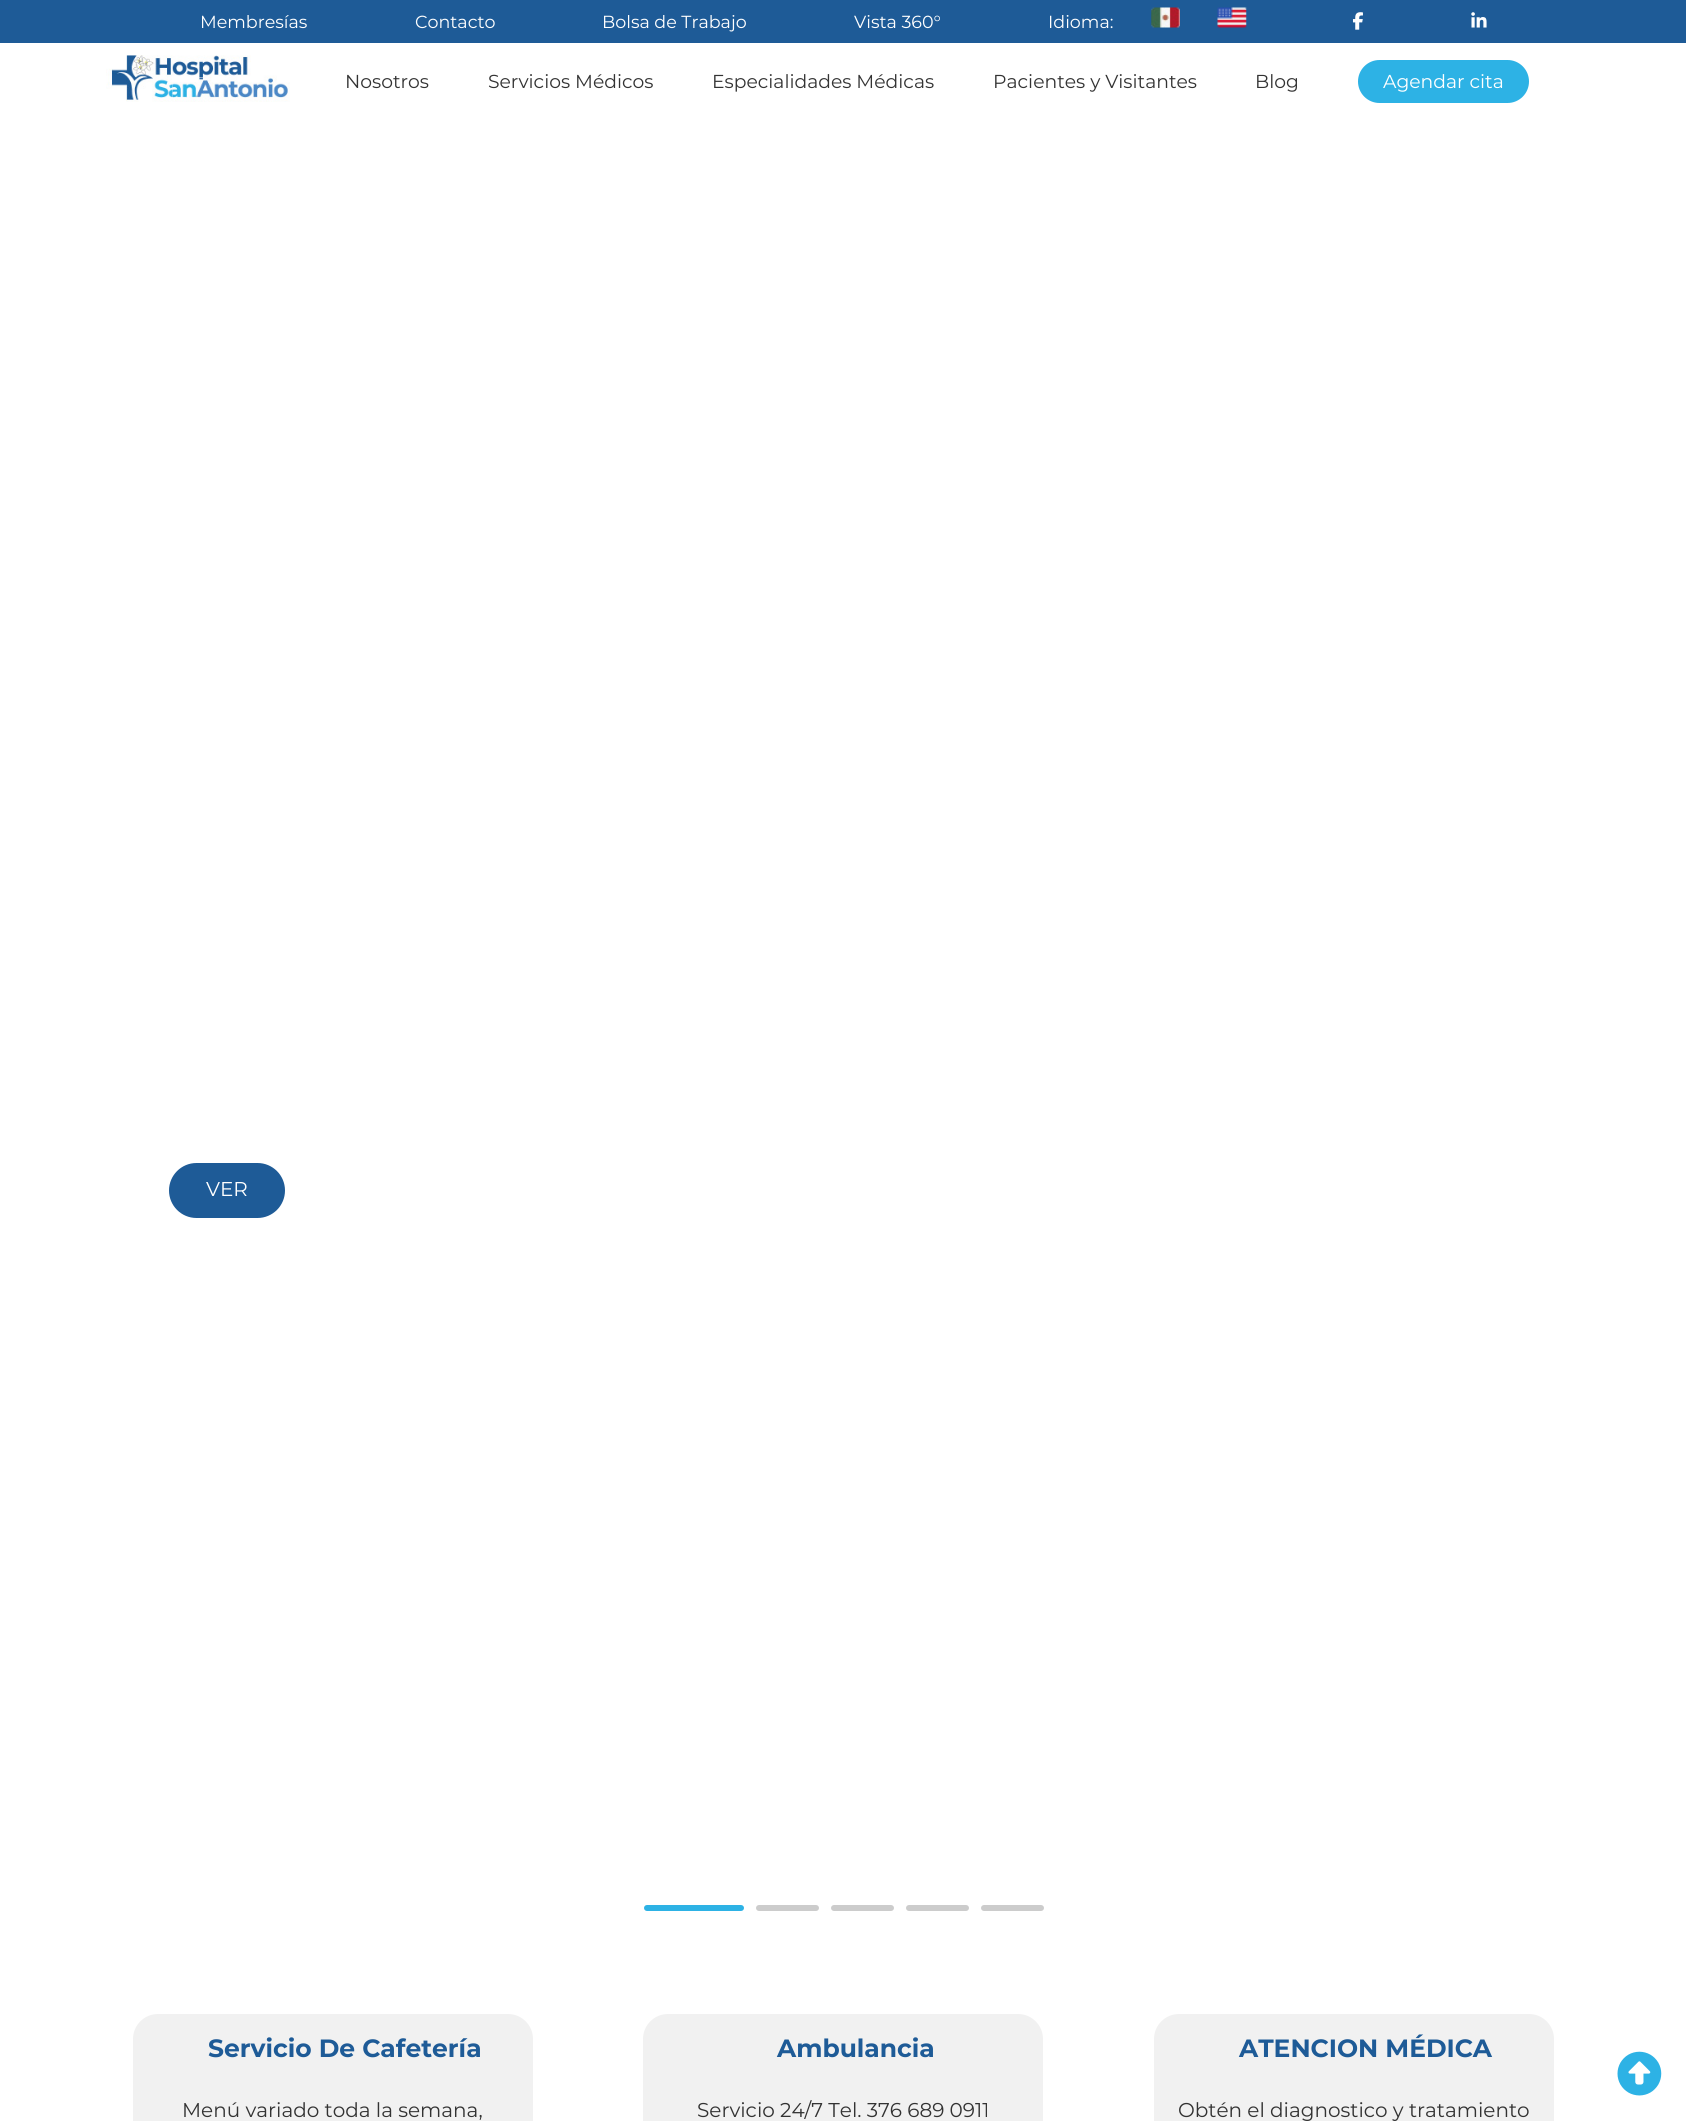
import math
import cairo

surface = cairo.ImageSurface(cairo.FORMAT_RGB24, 1686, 2121)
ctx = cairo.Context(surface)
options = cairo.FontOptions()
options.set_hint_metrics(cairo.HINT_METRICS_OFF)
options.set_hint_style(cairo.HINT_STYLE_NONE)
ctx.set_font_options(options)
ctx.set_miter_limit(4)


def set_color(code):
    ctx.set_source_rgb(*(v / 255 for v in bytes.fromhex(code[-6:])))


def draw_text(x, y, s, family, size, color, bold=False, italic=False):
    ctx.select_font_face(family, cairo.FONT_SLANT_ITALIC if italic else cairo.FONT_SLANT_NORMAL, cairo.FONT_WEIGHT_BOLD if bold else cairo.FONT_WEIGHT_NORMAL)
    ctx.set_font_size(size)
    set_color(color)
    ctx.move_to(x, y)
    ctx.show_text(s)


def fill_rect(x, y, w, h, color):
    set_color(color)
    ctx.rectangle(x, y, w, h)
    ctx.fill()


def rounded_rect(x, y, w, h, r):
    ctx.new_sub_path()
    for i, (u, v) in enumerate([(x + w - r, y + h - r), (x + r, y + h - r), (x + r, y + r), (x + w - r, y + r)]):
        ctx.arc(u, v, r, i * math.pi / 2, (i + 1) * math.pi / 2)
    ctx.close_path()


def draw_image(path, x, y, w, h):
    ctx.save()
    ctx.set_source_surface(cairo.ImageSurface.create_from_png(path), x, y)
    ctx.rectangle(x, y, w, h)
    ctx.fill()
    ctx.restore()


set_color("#ffffff")
ctx.paint()
fill_rect(0, 0, 1686, 43, "#1e5b97")
draw_text(200, 28, "Membresías", "Montserrat", 17.5, "#ffffff")
draw_text(415, 28, "Contacto", "Montserrat", 17.5, "#ffffff")
draw_text(602, 28, "Bolsa de Trabajo", "Montserrat", 17.5, "#ffffff")
draw_text(854, 28, "Vista 360°", "Montserrat", 17.5, "#ffffff")
draw_text(1048, 28, "Idioma:", "Montserrat", 17.5, "#ffffff")
draw_image("assets/img1.png", 1151, 7, 29, 21)
draw_image("assets/img2.png", 1217, 7, 30, 21)
draw_image("assets/img3.png", 1352, 12, 11, 18)
draw_image("assets/img4.png", 1471, 12, 16, 16)
draw_image("assets/img5.png", 106, 55, 184, 47)
draw_text(345, 88, "Nosotros", "Montserrat", 18.75, "#333333")
draw_text(488, 88, "Servicios Médicos", "Montserrat", 18.75, "#333333")
draw_text(712, 88, "Especialidades Médicas", "Montserrat", 18.75, "#333333")
draw_text(993, 88, "Pacientes y Visitantes", "Montserrat", 18.75, "#333333")
draw_text(1255, 88, "Blog", "Montserrat", 18.75, "#333333")
set_color("#2db2e5")
rounded_rect(1358, 60, 171, 43, 21.5)
ctx.fill()
draw_text(1383, 88, "Agendar cita", "Montserrat", 18.75, "#ffffff")
set_color("#1e5b97")
rounded_rect(169, 1163, 116, 55, 27.5)
ctx.fill()
draw_text(206, 1196, "VER", "Montserrat", 20, "#ffffff")
set_color("#2db2e5")
rounded_rect(644, 1905, 100, 6, 3)
ctx.fill()
set_color("#cccccc")
rounded_rect(756, 1905, 63, 6, 3)
ctx.fill()
rounded_rect(831, 1905, 63, 6, 3)
ctx.fill()
rounded_rect(906, 1905, 63, 6, 3)
ctx.fill()
rounded_rect(981, 1905, 63, 6, 3)
ctx.fill()
set_color("#f1f1f1")
rounded_rect(133, 2014, 400, 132, 25)
ctx.fill()
draw_text(208, 2057, "Servicio De Cafetería", "Montserrat", 25, "#1e5b97", bold=True)
draw_text(182, 2117, "Menú variado toda la semana,", "Montserrat", 20, "#333333")
set_color("#f1f1f1")
rounded_rect(643, 2014, 400, 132, 25)
ctx.fill()
draw_text(777, 2057, "Ambulancia", "Montserrat", 25, "#1e5b97", bold=True)
draw_text(697, 2117, "Servicio 24/7 Tel. 376 689 0911", "Montserrat", 20, "#333333")
set_color("#f1f1f1")
rounded_rect(1154, 2014, 400, 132, 25)
ctx.fill()
draw_text(1239, 2057, "ATENCION MÉDICA", "Montserrat", 25, "#1e5b97", bold=True)
draw_text(1178, 2117, "Obtén el diagnostico y tratamiento", "Montserrat", 20, "#333333")
draw_image("assets/img6.png", 1617, 2051, 45, 45)
surface.write_to_png("output.png")
